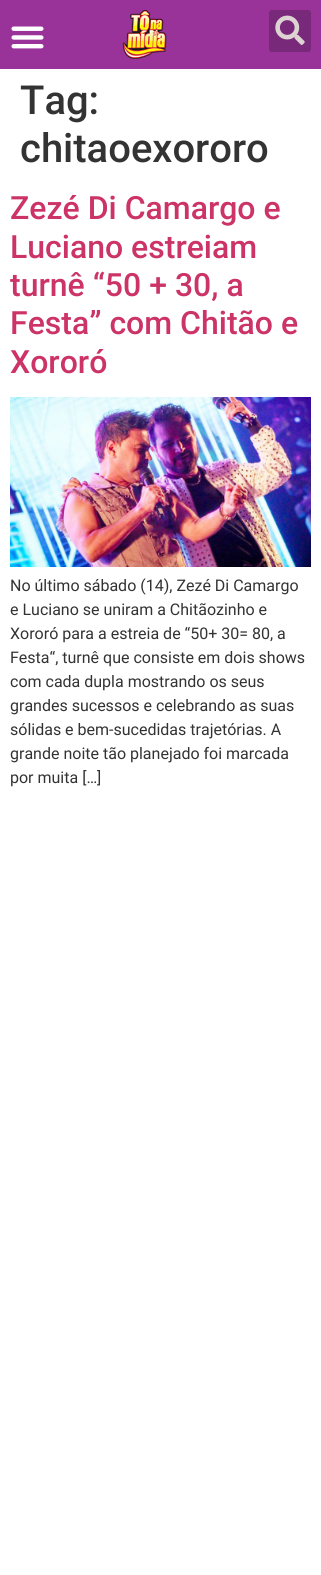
import math
import cairo

surface = cairo.ImageSurface(cairo.FORMAT_RGB24, 321, 1575)
ctx = cairo.Context(surface)
options = cairo.FontOptions()
options.set_hint_metrics(cairo.HINT_METRICS_OFF)
options.set_hint_style(cairo.HINT_STYLE_NONE)
ctx.set_font_options(options)
ctx.set_miter_limit(4)


def set_color(code):
    ctx.set_source_rgb(*(v / 255 for v in bytes.fromhex(code[-6:])))


def draw_text(x, y, s, family, size, color, bold=False, italic=False):
    ctx.select_font_face(family, cairo.FONT_SLANT_ITALIC if italic else cairo.FONT_SLANT_NORMAL, cairo.FONT_WEIGHT_BOLD if bold else cairo.FONT_WEIGHT_NORMAL)
    ctx.set_font_size(size)
    set_color(color)
    ctx.move_to(x, y)
    ctx.show_text(s)


def fill_rect(x, y, w, h, color):
    set_color(color)
    ctx.rectangle(x, y, w, h)
    ctx.fill()


def rounded_rect(x, y, w, h, r):
    ctx.new_sub_path()
    for i, (u, v) in enumerate([(x + w - r, y + h - r), (x + r, y + h - r), (x + r, y + r), (x + w - r, y + r)]):
        ctx.arc(u, v, r, i * math.pi / 2, (i + 1) * math.pi / 2)
    ctx.close_path()


def draw_image(path, x, y, w, h):
    ctx.save()
    ctx.set_source_surface(cairo.ImageSurface.create_from_png(path), x, y)
    ctx.rectangle(x, y, w, h)
    ctx.fill()
    ctx.restore()


set_color("#ffffff")
ctx.paint()
fill_rect(0, 0, 321, 69, "#993399")
draw_image("assets/img1.png", 11, 26, 33, 23)
draw_image("assets/img2.png", 122, 10, 45, 49)
set_color("#792979")
rounded_rect(269, 10, 42, 42, 3)
ctx.fill()
draw_image("assets/img3.png", 275, 15, 30, 30)
draw_text(20, 114, "Tag:", "Roboto Medium", 40, "#333333")
draw_text(20, 162, "chitaoexororo", "Roboto Medium", 40, "#333333")
draw_text(10, 219, "Zezé Di Camargo e", "Roboto Medium", 32, "#cc3366")
draw_text(10, 258, "Luciano estreiam", "Roboto Medium", 32, "#cc3366")
draw_text(10, 296, "turnê “50 + 30, a", "Roboto Medium", 32, "#cc3366")
draw_text(10, 334, "Festa” com Chitão e", "Roboto Medium", 32, "#cc3366")
draw_text(10, 373, "Xororó", "Roboto Medium", 32, "#cc3366")
draw_image("assets/img4.png", 10, 397, 301, 170)
draw_text(10, 591, "No último sábado (14), Zezé Di Camargo", "Roboto", 16, "#333333")
draw_text(10, 615, "e Luciano se uniram a Chitãozinho e", "Roboto", 16, "#333333")
draw_text(10, 639, "Xororó para a estreia de “50+ 30= 80, a", "Roboto", 16, "#333333")
draw_text(10, 663, "Festa“, turnê que consiste em dois shows", "Roboto", 16, "#333333")
draw_text(10, 687, "com cada dupla mostrando os seus", "Roboto", 16, "#333333")
draw_text(10, 711, "grandes sucessos e celebrando as suas", "Roboto", 16, "#333333")
draw_text(10, 735, "sólidas e bem-sucedidas trajetórias. A", "Roboto", 16, "#333333")
draw_text(10, 759, "grande noite tão planejado foi marcada", "Roboto", 16, "#333333")
draw_text(10, 783, "por muita […]", "Roboto", 16, "#333333")
surface.write_to_png("output.png")
